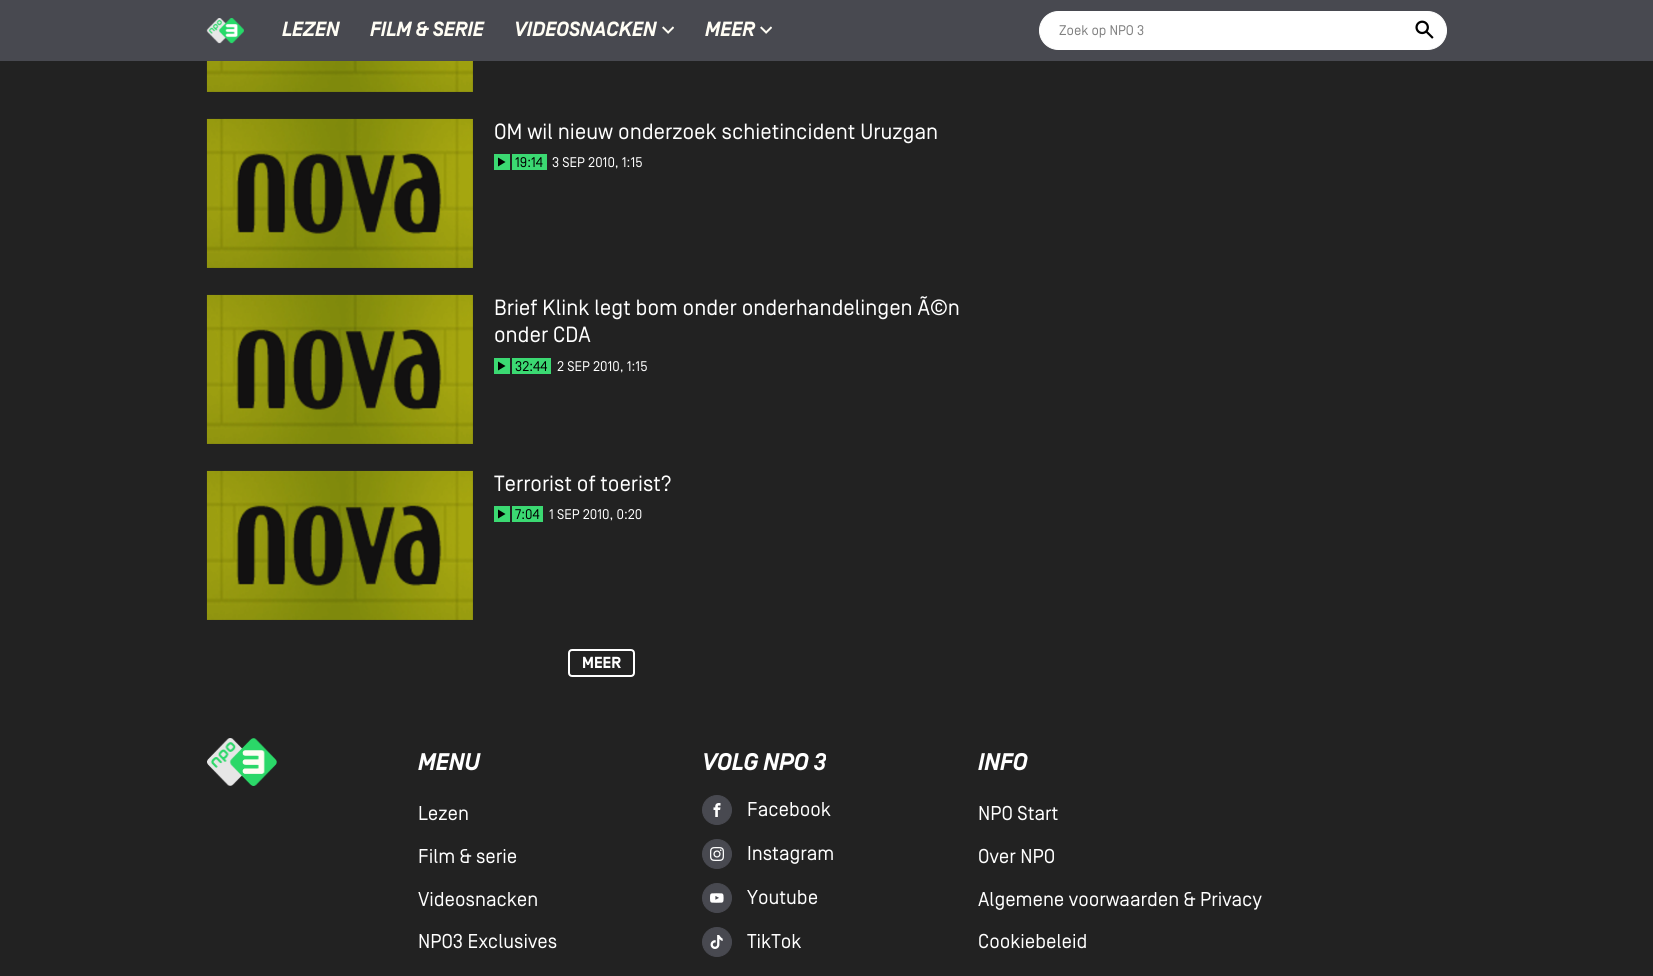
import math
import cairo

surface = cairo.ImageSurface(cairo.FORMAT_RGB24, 1653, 976)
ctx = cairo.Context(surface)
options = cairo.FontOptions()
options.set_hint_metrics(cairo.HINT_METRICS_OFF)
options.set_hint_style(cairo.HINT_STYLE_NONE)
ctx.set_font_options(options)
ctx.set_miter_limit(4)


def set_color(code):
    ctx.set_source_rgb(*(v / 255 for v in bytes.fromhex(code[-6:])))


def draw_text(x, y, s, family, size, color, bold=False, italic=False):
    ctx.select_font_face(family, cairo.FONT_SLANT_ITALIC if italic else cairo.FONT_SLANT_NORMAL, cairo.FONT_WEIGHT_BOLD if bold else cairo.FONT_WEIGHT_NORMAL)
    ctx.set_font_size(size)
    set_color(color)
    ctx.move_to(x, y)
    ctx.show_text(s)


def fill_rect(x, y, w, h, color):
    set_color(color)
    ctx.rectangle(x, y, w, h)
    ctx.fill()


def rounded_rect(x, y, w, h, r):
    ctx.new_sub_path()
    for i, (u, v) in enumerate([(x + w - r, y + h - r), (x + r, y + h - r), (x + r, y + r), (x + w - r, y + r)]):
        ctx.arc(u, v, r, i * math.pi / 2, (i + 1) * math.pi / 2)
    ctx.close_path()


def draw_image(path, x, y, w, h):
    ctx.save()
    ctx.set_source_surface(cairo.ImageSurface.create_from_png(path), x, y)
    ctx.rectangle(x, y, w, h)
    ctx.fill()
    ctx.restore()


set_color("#222222")
ctx.paint()
fill_rect(0, 0, 1653, 61, "#484950")
draw_image("assets/img1.png", 206, 18, 38, 26)
draw_text(282, 36, "LEZEN", "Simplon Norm", 20.5, "#fffdf4", bold=True, italic=True)
draw_text(370, 36, "FILM & SERIE", "Simplon Norm", 20.5, "#fffdf4", bold=True, italic=True)
draw_text(514, 36, "VIDEOSNACKEN", "Simplon Norm", 20.5, "#fffdf4", bold=True, italic=True)
draw_image("assets/img2.png", 662, 26, 12, 8)
draw_text(705, 36, "MEER", "Simplon Norm", 20.5, "#fffdf4", bold=True, italic=True)
draw_image("assets/img2.png", 760, 26, 12, 8)
set_color("#ffffff")
rounded_rect(1039.5, 11.5, 407, 38, 19)
ctx.fill_preserve()
ctx.set_line_width(1)
ctx.stroke()
draw_text(1059, 35, "Zoek op NPO 3", "Simplon Norm", 14, "#808080")
draw_image("assets/img3.png", 1415, 20, 19, 19)
draw_image("assets/img4.png", 206, 61, 267, 31)
draw_image("assets/img5.png", 206, 118, 267, 150)
draw_text(494, 139, "OM wil nieuw onderzoek schietincident Uruzgan", "Simplon Norm", 22, "#ffffff")
fill_rect(494, 154, 16, 16, "#3bd972")
set_color("#000000")
ctx.set_fill_rule(cairo.FILL_RULE_EVEN_ODD)
ctx.new_path()
ctx.move_to(505.5, 162)
ctx.line_to(498, 166.5)
ctx.line_to(498, 157.5)
ctx.close_path()
ctx.fill()
fill_rect(512, 154, 35, 16, "#3bd972")
draw_text(515, 167, "19:14", "Simplon Norm", 14, "#000000")
draw_text(552, 167, "3 SEP 2010, 1:15", "Simplon Norm", 14, "#ffffff")
draw_image("assets/img5.png", 206, 294, 267, 150)
draw_text(494, 315, "Brief Klink legt bom onder onderhandelingen Ã©n", "Simplon Norm", 22, "#ffffff")
draw_text(494, 342, "onder CDA", "Simplon Norm", 22, "#ffffff")
fill_rect(494, 358, 16, 16, "#3bd972")
set_color("#000000")
ctx.new_path()
ctx.move_to(505.5, 366)
ctx.line_to(498, 370.5)
ctx.line_to(498, 361.5)
ctx.close_path()
ctx.fill()
fill_rect(512, 358, 39, 16, "#3bd972")
draw_text(515, 371, "32:44", "Simplon Norm", 14, "#000000")
draw_text(557, 371, "2 SEP 2010, 1:15", "Simplon Norm", 14, "#ffffff")
draw_image("assets/img5.png", 206, 470, 267, 150)
draw_text(494, 491, "Terrorist of toerist?", "Simplon Norm", 22, "#ffffff")
fill_rect(494, 506, 16, 16, "#3bd972")
set_color("#000000")
ctx.new_path()
ctx.move_to(505.5, 514)
ctx.line_to(498, 518.5)
ctx.line_to(498, 509.5)
ctx.close_path()
ctx.fill()
fill_rect(512, 506, 31, 16, "#3bd972")
draw_text(515, 519, "7:04", "Simplon Norm", 14, "#000000")
draw_text(549, 519, "1 SEP 2010, 0:20", "Simplon Norm", 14, "#ffffff")
rounded_rect(569, 650, 65, 26, 3)
ctx.set_line_width(2)
ctx.stroke()
draw_text(582, 668, "MEER", "Simplon Norm", 16, "#ffffff", bold=True)
draw_image("assets/img6.png", 207, 738, 70, 48)
draw_text(418, 770, "MENU", "Simplon Norm", 24, "#ffffff", bold=True, italic=True)
draw_text(418, 820, "Lezen", "Simplon Norm", 20, "#ffffff")
draw_text(418, 863, "Film & serie", "Simplon Norm", 20, "#ffffff")
draw_text(418, 906, "Videosnacken", "Simplon Norm", 20, "#ffffff")
draw_text(418, 948, "NPO3 Exclusives", "Simplon Norm", 20, "#ffffff")
draw_text(702, 770, "VOLG NPO 3", "Simplon Norm", 24, "#ffffff", bold=True, italic=True)
set_color("#484950")
ctx.new_path()
ctx.arc(717, 810, 14.5, 0, 2 * math.pi)
ctx.fill_preserve()
ctx.set_line_width(1)
ctx.stroke()
draw_image("assets/img7.png", 713, 803, 8, 14)
draw_text(747, 816, "Facebook", "Simplon Norm", 20, "#ffffff")
set_color("#484950")
ctx.new_path()
ctx.arc(717, 854, 14.5, 0, 2 * math.pi)
ctx.fill_preserve()
ctx.stroke()
draw_image("assets/img8.png", 710, 847, 14, 14)
draw_text(747, 860, "Instagram", "Simplon Norm", 20, "#ffffff")
set_color("#484950")
ctx.new_path()
ctx.arc(717, 898, 14.5, 0, 2 * math.pi)
ctx.fill_preserve()
ctx.stroke()
draw_image("assets/img9.png", 710, 893, 14, 10)
draw_text(747, 904, "Youtube", "Simplon Norm", 20, "#ffffff")
set_color("#484950")
ctx.new_path()
ctx.arc(717, 942, 14.5, 0, 2 * math.pi)
ctx.fill_preserve()
ctx.stroke()
draw_image("assets/img10.png", 710, 935, 13, 14)
draw_text(747, 948, "TikTok", "Simplon Norm", 20, "#ffffff")
draw_text(978, 770, "INFO", "Simplon Norm", 24, "#ffffff", bold=True, italic=True)
draw_text(978, 820, "NPO Start", "Simplon Norm", 20, "#ffffff")
draw_text(978, 863, "Over NPO", "Simplon Norm", 20, "#ffffff")
draw_text(978, 906, "Algemene voorwaarden & Privacy", "Simplon Norm", 20, "#ffffff")
draw_text(978, 948, "Cookiebeleid", "Simplon Norm", 20, "#ffffff")
surface.write_to_png("output.png")
